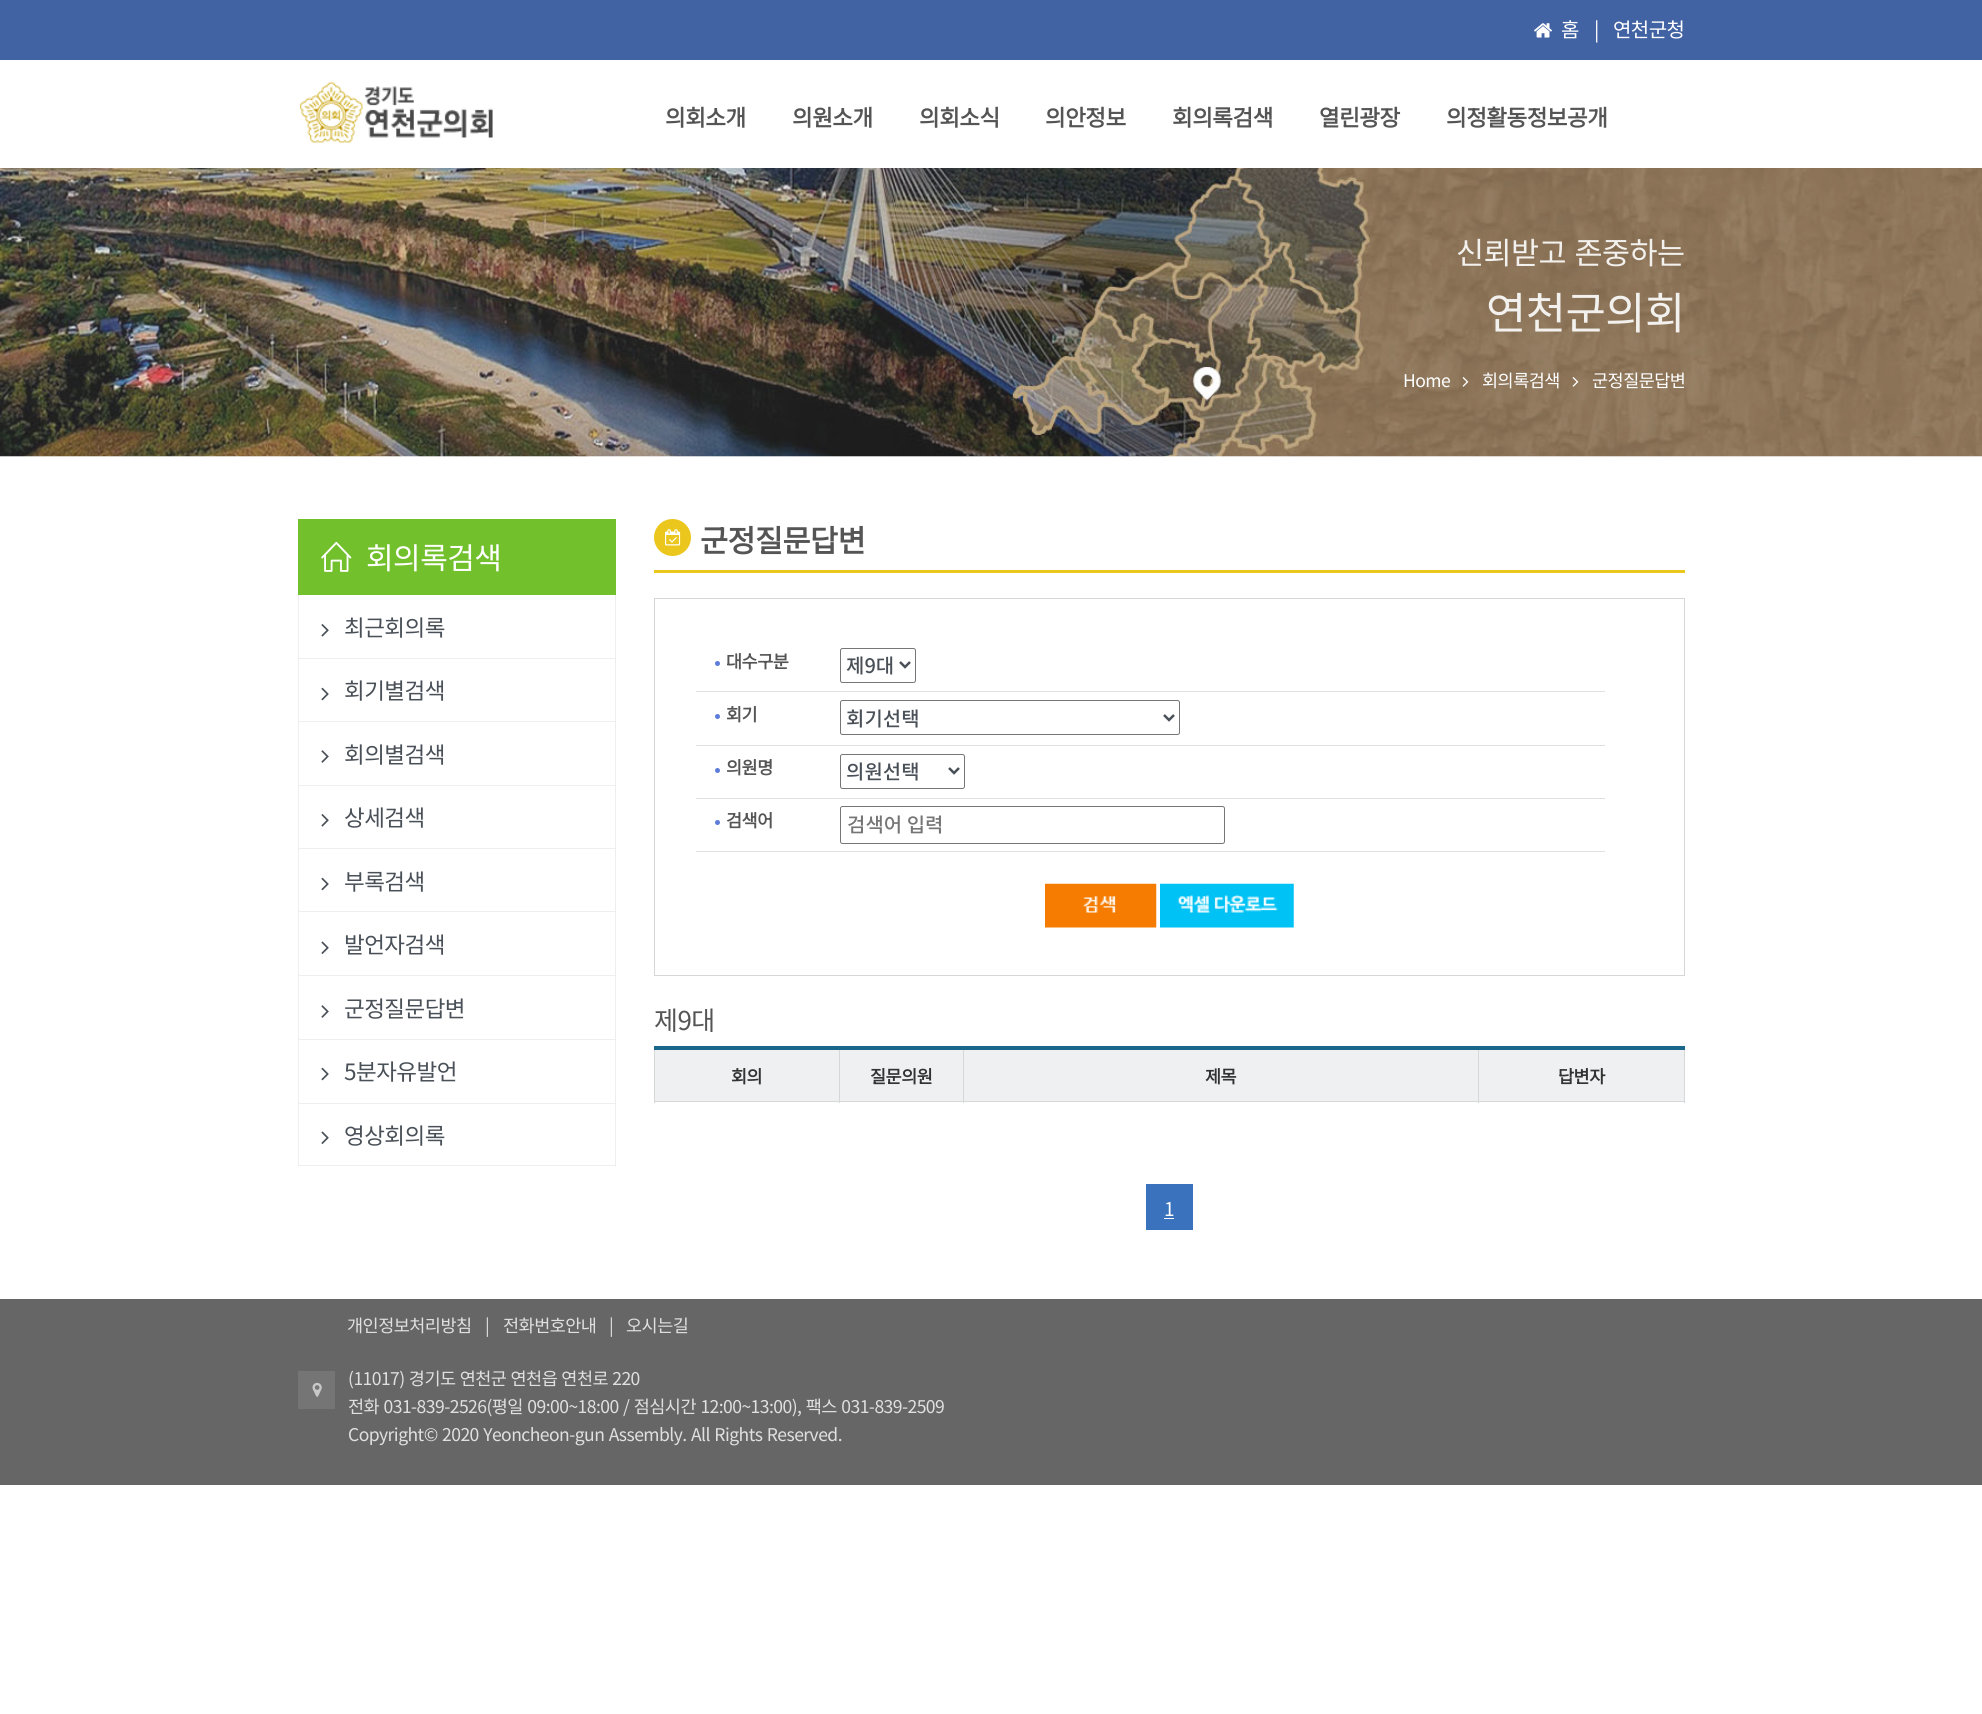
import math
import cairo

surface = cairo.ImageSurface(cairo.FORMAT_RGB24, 1982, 1714)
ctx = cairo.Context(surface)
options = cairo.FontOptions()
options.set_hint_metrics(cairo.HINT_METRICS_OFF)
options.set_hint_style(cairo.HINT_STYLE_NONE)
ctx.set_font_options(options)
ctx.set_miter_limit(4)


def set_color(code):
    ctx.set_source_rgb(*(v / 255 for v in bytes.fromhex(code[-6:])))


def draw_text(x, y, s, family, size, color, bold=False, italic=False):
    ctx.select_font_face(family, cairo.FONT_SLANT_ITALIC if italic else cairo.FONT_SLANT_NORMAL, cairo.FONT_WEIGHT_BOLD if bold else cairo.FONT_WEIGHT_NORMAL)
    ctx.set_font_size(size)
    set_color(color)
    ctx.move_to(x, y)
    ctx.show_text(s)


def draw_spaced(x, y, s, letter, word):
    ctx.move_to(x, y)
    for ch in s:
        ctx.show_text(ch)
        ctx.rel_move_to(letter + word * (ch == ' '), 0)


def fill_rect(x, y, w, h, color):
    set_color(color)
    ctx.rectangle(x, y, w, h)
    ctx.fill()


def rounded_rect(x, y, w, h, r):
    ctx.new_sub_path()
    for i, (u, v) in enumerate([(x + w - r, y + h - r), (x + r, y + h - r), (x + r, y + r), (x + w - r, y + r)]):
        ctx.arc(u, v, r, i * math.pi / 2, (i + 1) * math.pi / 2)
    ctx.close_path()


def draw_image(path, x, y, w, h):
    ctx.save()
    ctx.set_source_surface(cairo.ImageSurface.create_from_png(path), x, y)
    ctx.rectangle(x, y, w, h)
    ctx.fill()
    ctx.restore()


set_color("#ffffff")
ctx.paint()
fill_rect(0, 0, 1982, 60, "#4263a3")
draw_image("assets/img1.png", 1534, 23, 18, 15)
ctx.select_font_face("Noto Sans KR Thin")
ctx.set_font_size(20)
set_color("#ffffff")
draw_spaced(1561, 37, "홈", -0.53, 0)
draw_spaced(1594, 37, "|", -0.53, 0)
draw_spaced(1613, 37, "연천군청", -0.53, 0)
draw_image("assets/img2.png", 299, 82, 194, 61)
ctx.select_font_face("Noto Sans KR", cairo.FONT_SLANT_NORMAL, cairo.FONT_WEIGHT_BOLD)
ctx.set_font_size(22.5)
set_color("#555555")
draw_spaced(665, 126, "의회소개", -0.53, 0)
draw_spaced(792, 126, "의원소개", -0.53, 0)
draw_spaced(919, 126, "의회소식", -0.53, 0)
draw_spaced(1045, 126, "의안정보", -0.53, 0)
draw_spaced(1172, 126, "회의록검색", -0.53, 0)
draw_spaced(1319, 126, "열린광장", -0.53, 0)
draw_spaced(1446, 126, "의정활동정보공개", -0.53, 0)
draw_image("assets/img3.png", 0, 168, 1982, 289)
ctx.select_font_face("Noto Sans KR Thin")
ctx.set_font_size(30.5)
set_color("#f3f1ee")
draw_spaced(1456, 264, "신뢰받고 존중하는", -0.53, 2)
ctx.set_font_size(43.75)
draw_spaced(1486, 329, "연천군의회", -0.53, 0)
ctx.set_font_size(17.5)
set_color("#ffffff")
draw_spaced(1403, 387, "Home", -0.53, 0)
draw_image("assets/img4.png", 1462, 377, 7, 10)
draw_spaced(1482, 387, "회의록검색", -0.53, 0)
draw_image("assets/img5.png", 1572, 377, 7, 10)
draw_spaced(1592, 387, "군정질문답변", -0.53, 0)
fill_rect(298, 519, 318, 76, "#72c02c")
draw_image("assets/img6.png", 321, 541, 31, 31)
ctx.set_font_size(30)
set_color("#ffffff")
draw_spaced(366, 569, "회의록검색", -0.53, 0)
fill_rect(615, 595, 1, 571, "#eeeeee")
fill_rect(298, 658, 318, 1, "#eeeeee")
fill_rect(298, 595, 1, 64, "#eeeeee")
draw_image("assets/img7.png", 321, 624, 8, 13)
ctx.set_font_size(22.5)
set_color("#495057")
draw_spaced(344, 636, "최근회의록", -0.53, 0)
fill_rect(298, 721, 318, 1, "#eeeeee")
fill_rect(298, 659, 1, 64, "#eeeeee")
draw_image("assets/img8.png", 321, 687, 8, 14)
set_color("#495057")
draw_spaced(344, 699, "회기별검색", -0.53, 0)
fill_rect(298, 785, 318, 1, "#eeeeee")
fill_rect(298, 723, 1, 63, "#eeeeee")
draw_image("assets/img9.png", 321, 750, 8, 13)
set_color("#495057")
draw_spaced(344, 763, "회의별검색", -0.53, 0)
fill_rect(298, 848, 318, 1, "#eeeeee")
fill_rect(298, 786, 1, 63, "#eeeeee")
draw_image("assets/img7.png", 321, 814, 8, 13)
set_color("#495057")
draw_spaced(344, 826, "상세검색", -0.53, 0)
fill_rect(298, 911, 318, 1, "#eeeeee")
fill_rect(298, 849, 1, 64, "#eeeeee")
draw_image("assets/img8.png", 321, 877, 8, 14)
set_color("#495057")
draw_spaced(344, 890, "부록검색", -0.53, 0)
fill_rect(298, 975, 318, 1, "#eeeeee")
fill_rect(298, 913, 1, 63, "#eeeeee")
draw_image("assets/img10.png", 321, 941, 8, 13)
set_color("#495057")
draw_spaced(344, 953, "발언자검색", -0.53, 0)
fill_rect(298, 1039, 318, 1, "#eeeeee")
fill_rect(298, 976, 1, 64, "#eeeeee")
draw_image("assets/img9.png", 321, 1005, 8, 13)
set_color("#495057")
draw_spaced(344, 1017, "군정질문답변", -0.53, 0)
fill_rect(298, 1103, 318, 1, "#eeeeee")
fill_rect(298, 1040, 1, 64, "#eeeeee")
draw_image("assets/img8.png", 321, 1067, 8, 14)
set_color("#495057")
draw_spaced(344, 1080, "5분자유발언", -0.53, 0)
fill_rect(298, 1165, 318, 1, "#eeeeee")
fill_rect(298, 1104, 1, 62, "#eeeeee")
draw_image("assets/img10.png", 321, 1131, 8, 13)
set_color("#495057")
draw_spaced(344, 1144, "영상회의록", -0.53, 0)
fill_rect(654, 570, 1031, 3, "#ebc71d")
ctx.new_path()
ctx.arc(672.5, 537.5, 18.5, 0, 2 * math.pi)
ctx.fill()
draw_image("assets/img11.png", 665, 529, 16, 17)
ctx.select_font_face("Noto Sans KR", cairo.FONT_SLANT_NORMAL, cairo.FONT_WEIGHT_BOLD)
ctx.set_font_size(30.5)
set_color("#555555")
draw_spaced(700, 552, "군정질문답변", -0.53, 0)
ctx.rectangle(654.5, 598.5, 1030, 377)
set_color("#d6d6d6")
ctx.set_line_width(1)
ctx.stroke()
fill_rect(696, 691, 909, 1, "#e1e1e1")
set_color("#5e7dda")
ctx.arc(717.5, 663.5, 2.5, 0, 2 * math.pi)
ctx.fill()
ctx.set_font_size(17.5)
set_color("#555555")
draw_spaced(726, 668, "대수구분", -0.53, 0)
rounded_rect(840.5, 648.5, 75, 34, 2)
set_color("#767676")
ctx.stroke()
ctx.new_path()
ctx.move_to(900, 662)
ctx.line_to(905, 667)
ctx.line_to(910, 662)
set_color("#495057")
ctx.set_line_width(2.5)
ctx.stroke()
draw_text(846, 673, "제9대", "Noto Sans KR Medium", 20, "#495057")
fill_rect(696, 745, 909, 1, "#e1e1e1")
set_color("#5e7dda")
ctx.new_path()
ctx.arc(717.5, 716.5, 2.5, 0, 2 * math.pi)
ctx.fill()
ctx.select_font_face("Noto Sans KR", cairo.FONT_SLANT_NORMAL, cairo.FONT_WEIGHT_BOLD)
ctx.set_font_size(17.5)
set_color("#555555")
draw_spaced(726, 721, "회기", -0.53, 0)
rounded_rect(840.5, 700.5, 339, 34, 2)
set_color("#767676")
ctx.set_line_width(1)
ctx.stroke()
ctx.new_path()
ctx.move_to(1164, 715)
ctx.line_to(1169, 720)
ctx.line_to(1174, 715)
set_color("#495057")
ctx.set_line_width(2.5)
ctx.stroke()
draw_text(846, 726, "회기선택", "Noto Sans KR Medium", 20, "#495057")
fill_rect(696, 798, 909, 1, "#e1e1e1")
set_color("#5e7dda")
ctx.new_path()
ctx.arc(717.5, 770.5, 2.5, 0, 2 * math.pi)
ctx.fill()
ctx.select_font_face("Noto Sans KR", cairo.FONT_SLANT_NORMAL, cairo.FONT_WEIGHT_BOLD)
ctx.set_font_size(17.5)
set_color("#555555")
draw_spaced(726, 774, "의원명", -0.53, 0)
rounded_rect(840.5, 754.5, 124, 34, 2)
set_color("#767676")
ctx.set_line_width(1)
ctx.stroke()
ctx.new_path()
ctx.move_to(949, 768)
ctx.line_to(954, 773)
ctx.line_to(959, 768)
set_color("#495057")
ctx.set_line_width(2.5)
ctx.stroke()
draw_text(846, 779, "의원선택", "Noto Sans KR Medium", 20, "#495057")
fill_rect(696, 851, 909, 1, "#e1e1e1")
set_color("#5e7dda")
ctx.new_path()
ctx.arc(717.5, 822.5, 2.5, 0, 2 * math.pi)
ctx.fill()
ctx.select_font_face("Noto Sans KR", cairo.FONT_SLANT_NORMAL, cairo.FONT_WEIGHT_BOLD)
ctx.set_font_size(17.5)
set_color("#555555")
draw_spaced(726, 827, "검색어", -0.53, 0)
rounded_rect(840.5, 806.5, 384, 37, 2)
set_color("#767676")
ctx.set_line_width(1)
ctx.stroke()
draw_text(847, 832, "검색어 입력", "Noto Sans KR Medium", 20, "#757575")
draw_image("assets/img12.png", 1045, 883, 112, 45)
draw_image("assets/img13.png", 1160, 883, 134, 45)
ctx.select_font_face("Noto Sans KR Thin")
ctx.set_font_size(26)
set_color("#555555")
draw_spaced(654, 1030, "제9대", -0.53, 0)
fill_rect(1684, 1048, 1, 55, "#d6d8d8")
fill_rect(1478, 1101, 207, 1, "#d6d8d8")
fill_rect(1478, 1048, 1, 55, "#d6d8d8")
fill_rect(963, 1101, 516, 1, "#d6d8d8")
fill_rect(963, 1048, 1, 55, "#d6d8d8")
fill_rect(839, 1101, 125, 1, "#d6d8d8")
fill_rect(839, 1048, 1, 55, "#d6d8d8")
fill_rect(654, 1101, 186, 1, "#d6d8d8")
fill_rect(654, 1048, 1, 55, "#d6d8d8")
fill_rect(654, 1046, 1031, 4, "#1a678b")
fill_rect(655, 1050, 184, 51, "#eef0f1")
ctx.select_font_face("Noto Sans KR", cairo.FONT_SLANT_NORMAL, cairo.FONT_WEIGHT_BOLD)
ctx.set_font_size(17.5)
set_color("#333333")
draw_spaced(731, 1083, "회의", -0.53, 0)
fill_rect(840, 1050, 123, 51, "#eef0f1")
set_color("#333333")
draw_spaced(870, 1083, "질문의원", -0.53, 0)
fill_rect(964, 1050, 514, 51, "#eef0f1")
set_color("#333333")
draw_spaced(1205, 1083, "제목", -0.53, 0)
fill_rect(1479, 1050, 205, 51, "#eef0f1")
set_color("#333333")
draw_spaced(1558, 1083, "답변자", -0.53, 0)
fill_rect(1146, 1184, 47, 46, "#3a72bd")
ctx.select_font_face("Noto Sans KR Thin")
ctx.set_font_size(19)
set_color("#ffffff")
draw_spaced(1164, 1216, "1", -0.53, 0)
fill_rect(1164, 1218, 10, 1, "#ffffff")
fill_rect(0, 1299, 1982, 186, "#666666")
ctx.set_font_size(17.5)
set_color("#e0e0e0")
draw_spaced(347, 1332, "개인정보처리방침", -0.53, 0)
draw_spaced(485, 1332, "|", -0.53, 0)
draw_spaced(503, 1332, "전화번호안내", -0.53, 0)
draw_spaced(609, 1332, "|", -0.53, 0)
draw_spaced(626, 1332, "오시는길", -0.53, 0)
fill_rect(298, 1371, 37, 38, "#757575")
draw_image("assets/img14.png", 312, 1382, 10, 15)
set_color("#e0e0e0")
draw_spaced(348, 1385, "(11017) 경기도 연천군 연천읍 연천로 220", -0.53, 0.75)
draw_spaced(348, 1413, "전화 031-839-2526(평일 09:00~18:00 / 점심시간 12:00~13:00), 팩스 031-839-2509", -0.53, 1)
draw_spaced(348, 1441, "Copyright© 2020 Yeoncheon-gun Assembly. All Rights Reserved.", -0.53, 1)
surface.write_to_png("output.png")
